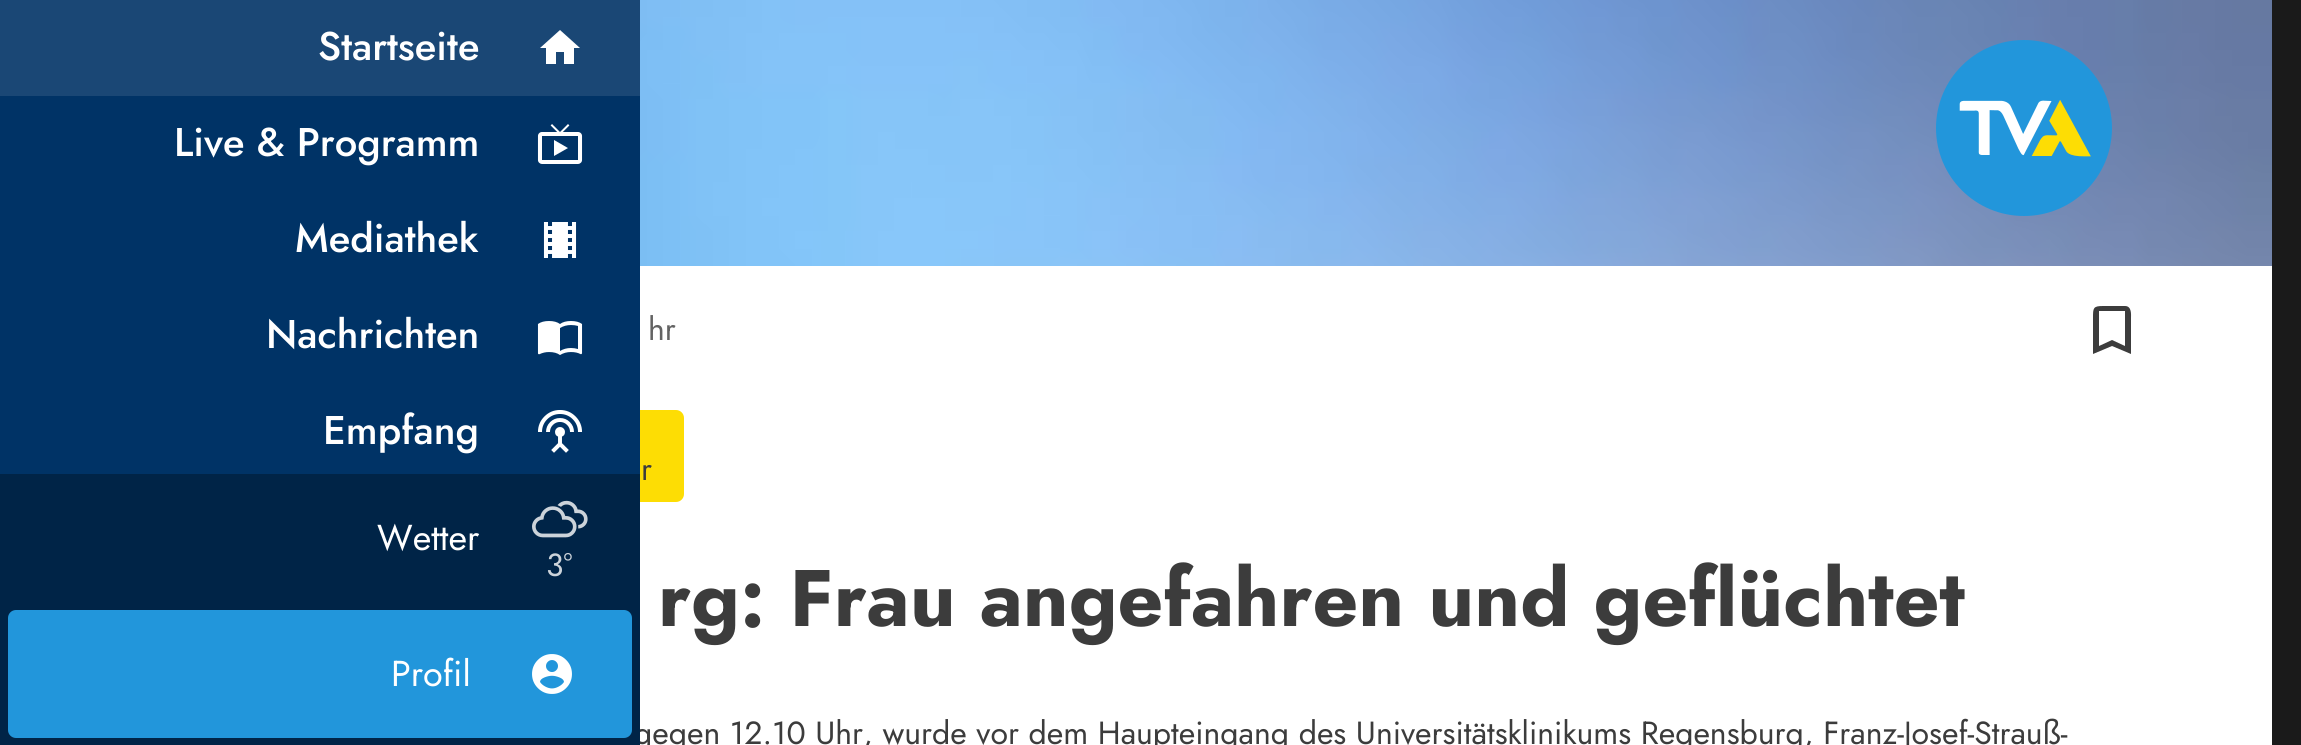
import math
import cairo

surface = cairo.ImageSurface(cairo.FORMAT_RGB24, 2301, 745)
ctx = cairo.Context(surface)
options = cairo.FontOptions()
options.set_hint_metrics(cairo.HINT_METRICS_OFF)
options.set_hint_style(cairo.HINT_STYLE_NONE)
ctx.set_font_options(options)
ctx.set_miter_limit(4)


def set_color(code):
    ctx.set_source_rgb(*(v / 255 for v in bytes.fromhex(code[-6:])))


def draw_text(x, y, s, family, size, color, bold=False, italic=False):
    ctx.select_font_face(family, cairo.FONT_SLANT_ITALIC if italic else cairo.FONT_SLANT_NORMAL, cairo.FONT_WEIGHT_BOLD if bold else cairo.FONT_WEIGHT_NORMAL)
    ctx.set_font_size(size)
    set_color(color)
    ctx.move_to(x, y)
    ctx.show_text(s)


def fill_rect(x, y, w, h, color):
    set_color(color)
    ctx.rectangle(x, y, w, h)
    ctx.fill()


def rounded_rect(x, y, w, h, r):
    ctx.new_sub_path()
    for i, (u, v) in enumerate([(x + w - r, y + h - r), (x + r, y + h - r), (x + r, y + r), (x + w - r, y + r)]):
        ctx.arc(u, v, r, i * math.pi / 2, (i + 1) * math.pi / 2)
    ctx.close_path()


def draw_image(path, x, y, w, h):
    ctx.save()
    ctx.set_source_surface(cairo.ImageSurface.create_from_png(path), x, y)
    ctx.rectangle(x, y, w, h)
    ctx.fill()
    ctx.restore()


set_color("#1a1a1a")
ctx.paint()
fill_rect(640, 266, 1632, 479, "#ffffff")
set_color("#fddd04")
rounded_rect(368, 410, 316, 92, 8)
ctx.fill()
fill_rect(0, 96, 640, 378, "#003366")
draw_text(634, 744, "gegen 12.10 Uhr, wurde vor dem Haupteingang des Universitätsklinikums Regensburg, Franz-Josef-Strauß-", "Jost", 32, "#3c3c3c")
fill_rect(0, 474, 640, 271, "#002447")
draw_image("assets/img8.png", 640, 0, 1632, 266)
draw_text(648, 340, "hr", "Jost", 32, "#636363")
draw_text(641, 480, "r", "Jost", 32, "#3c3c3c")
draw_text(658, 626, "rg: Frau angefahren und geflüchtet", "Jost", 80, "#3c3c3c", bold=True)
ctx.save()
ctx.rectangle(0, 0, 640, 96)
ctx.clip()
set_color("#1a4775")
ctx.arc(560, 48, 672, 0, 2 * math.pi)
ctx.fill()
ctx.restore()
draw_text(318, 60, "Startseite", "Jost Medium", 40, "#ffffff")
ctx.new_path()
ctx.move_to(556, 64)
ctx.line_to(546, 64)
ctx.line_to(546, 48)
ctx.line_to(540, 48)
ctx.line_to(560, 30)
ctx.line_to(580, 48)
ctx.line_to(574, 48)
ctx.line_to(574, 64)
ctx.line_to(564, 64)
ctx.line_to(564, 52)
ctx.line_to(556, 52)
ctx.close_path()
ctx.fill()
draw_text(174, 156, "Live & Programm", "Jost Medium", 40, "#ffffff")
draw_image("assets/img1.png", 537, 124, 46, 40)
draw_text(295, 252, "Mediathek", "Jost Medium", 40, "#ffffff")
draw_image("assets/img2.png", 543, 222, 34, 36)
draw_text(266, 348, "Nachrichten", "Jost Medium", 40, "#ffffff")
draw_image("assets/img3.png", 537, 321, 46, 34)
draw_text(323, 444, "Empfang", "Jost Medium", 40, "#ffffff")
draw_image("assets/img4.png", 538, 410, 44, 43)
draw_text(377, 550, "Wetter", "Jost", 36, "#ffffff")
draw_image("assets/img5.png", 532, 500, 56, 38)
draw_text(546, 576, "3°", "Jost", 32, "#ccd3da")
set_color("#2296db")
rounded_rect(8, 610, 624, 128, 8)
ctx.fill()
draw_text(391, 686, "Profil", "Jost", 36, "#ffffff")
draw_image("assets/img6.png", 532, 654, 40, 40)
draw_image("assets/img7.png", 1936, 40, 176, 176)
set_color("#3c3c3c")
ctx.new_path()
ctx.move_to(2125, 346)
ctx.line_to(2125, 311)
ctx.line_to(2099, 311)
ctx.line_to(2099, 346)
ctx.line_to(2112, 340)
ctx.close_path()
ctx.move_to(2125, 306)
ctx.curve_to(2132, 306, 2131, 315, 2131, 318)
ctx.line_to(2131, 354)
ctx.line_to(2112, 346)
ctx.line_to(2093, 354)
ctx.line_to(2093, 318)
ctx.curve_to(2093, 308, 2093, 306, 2103, 306)
ctx.close_path()
ctx.fill()
surface.write_to_png("output.png")
